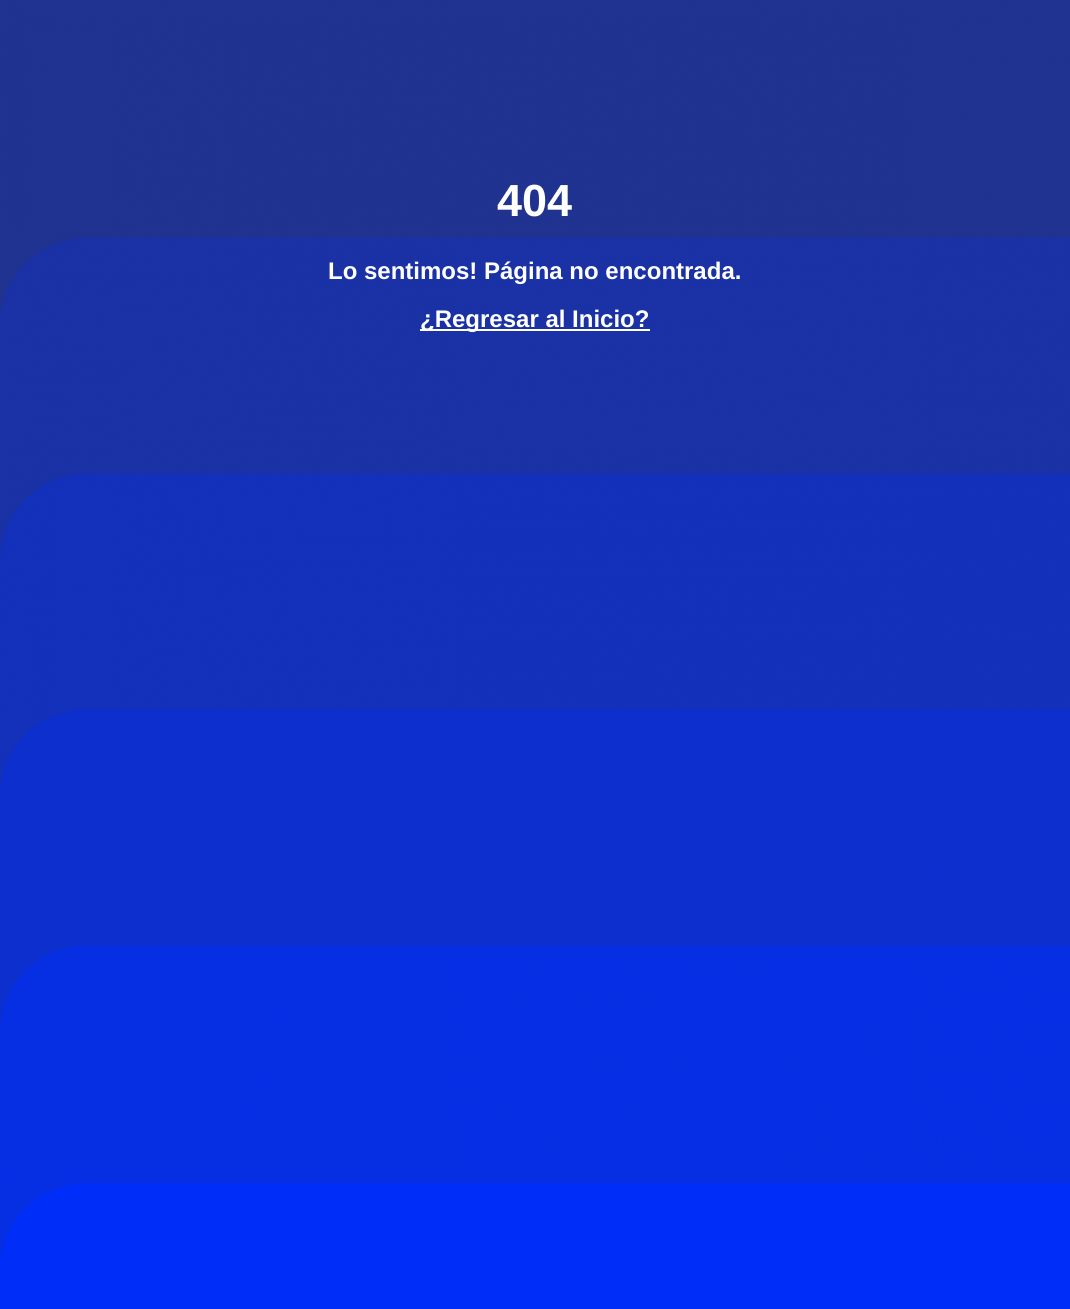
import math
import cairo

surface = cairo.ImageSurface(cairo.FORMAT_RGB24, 1070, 1309)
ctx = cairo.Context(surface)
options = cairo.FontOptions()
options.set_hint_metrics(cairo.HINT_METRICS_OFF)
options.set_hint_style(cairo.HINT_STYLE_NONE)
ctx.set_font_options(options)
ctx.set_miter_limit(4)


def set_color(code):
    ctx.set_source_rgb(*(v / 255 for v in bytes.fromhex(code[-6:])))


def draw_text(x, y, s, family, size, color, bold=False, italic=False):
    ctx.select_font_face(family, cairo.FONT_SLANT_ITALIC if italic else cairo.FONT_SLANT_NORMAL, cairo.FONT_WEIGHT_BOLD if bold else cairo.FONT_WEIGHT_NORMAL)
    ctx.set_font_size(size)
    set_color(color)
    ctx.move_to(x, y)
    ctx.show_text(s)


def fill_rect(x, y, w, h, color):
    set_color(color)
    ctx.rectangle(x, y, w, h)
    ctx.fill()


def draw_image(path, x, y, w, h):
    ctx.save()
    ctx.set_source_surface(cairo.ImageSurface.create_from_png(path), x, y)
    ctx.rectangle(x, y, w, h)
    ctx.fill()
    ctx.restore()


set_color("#ffffff")
ctx.paint()
draw_image("assets/img1.png", 0, 0, 1070, 1309)
draw_text(497, 216, "404", "Liberation Sans", 45, "#ffffff", bold=True)
draw_text(328, 279, "Lo sentimos! Página no encontrada.", "Liberation Sans", 24, "#ffffff", bold=True)
fill_rect(420, 329, 230, 2, "#ffffff")
draw_text(420, 327, "¿Regresar al Inicio?", "Liberation Sans", 24, "#ffffff", bold=True)
surface.write_to_png("output.png")
